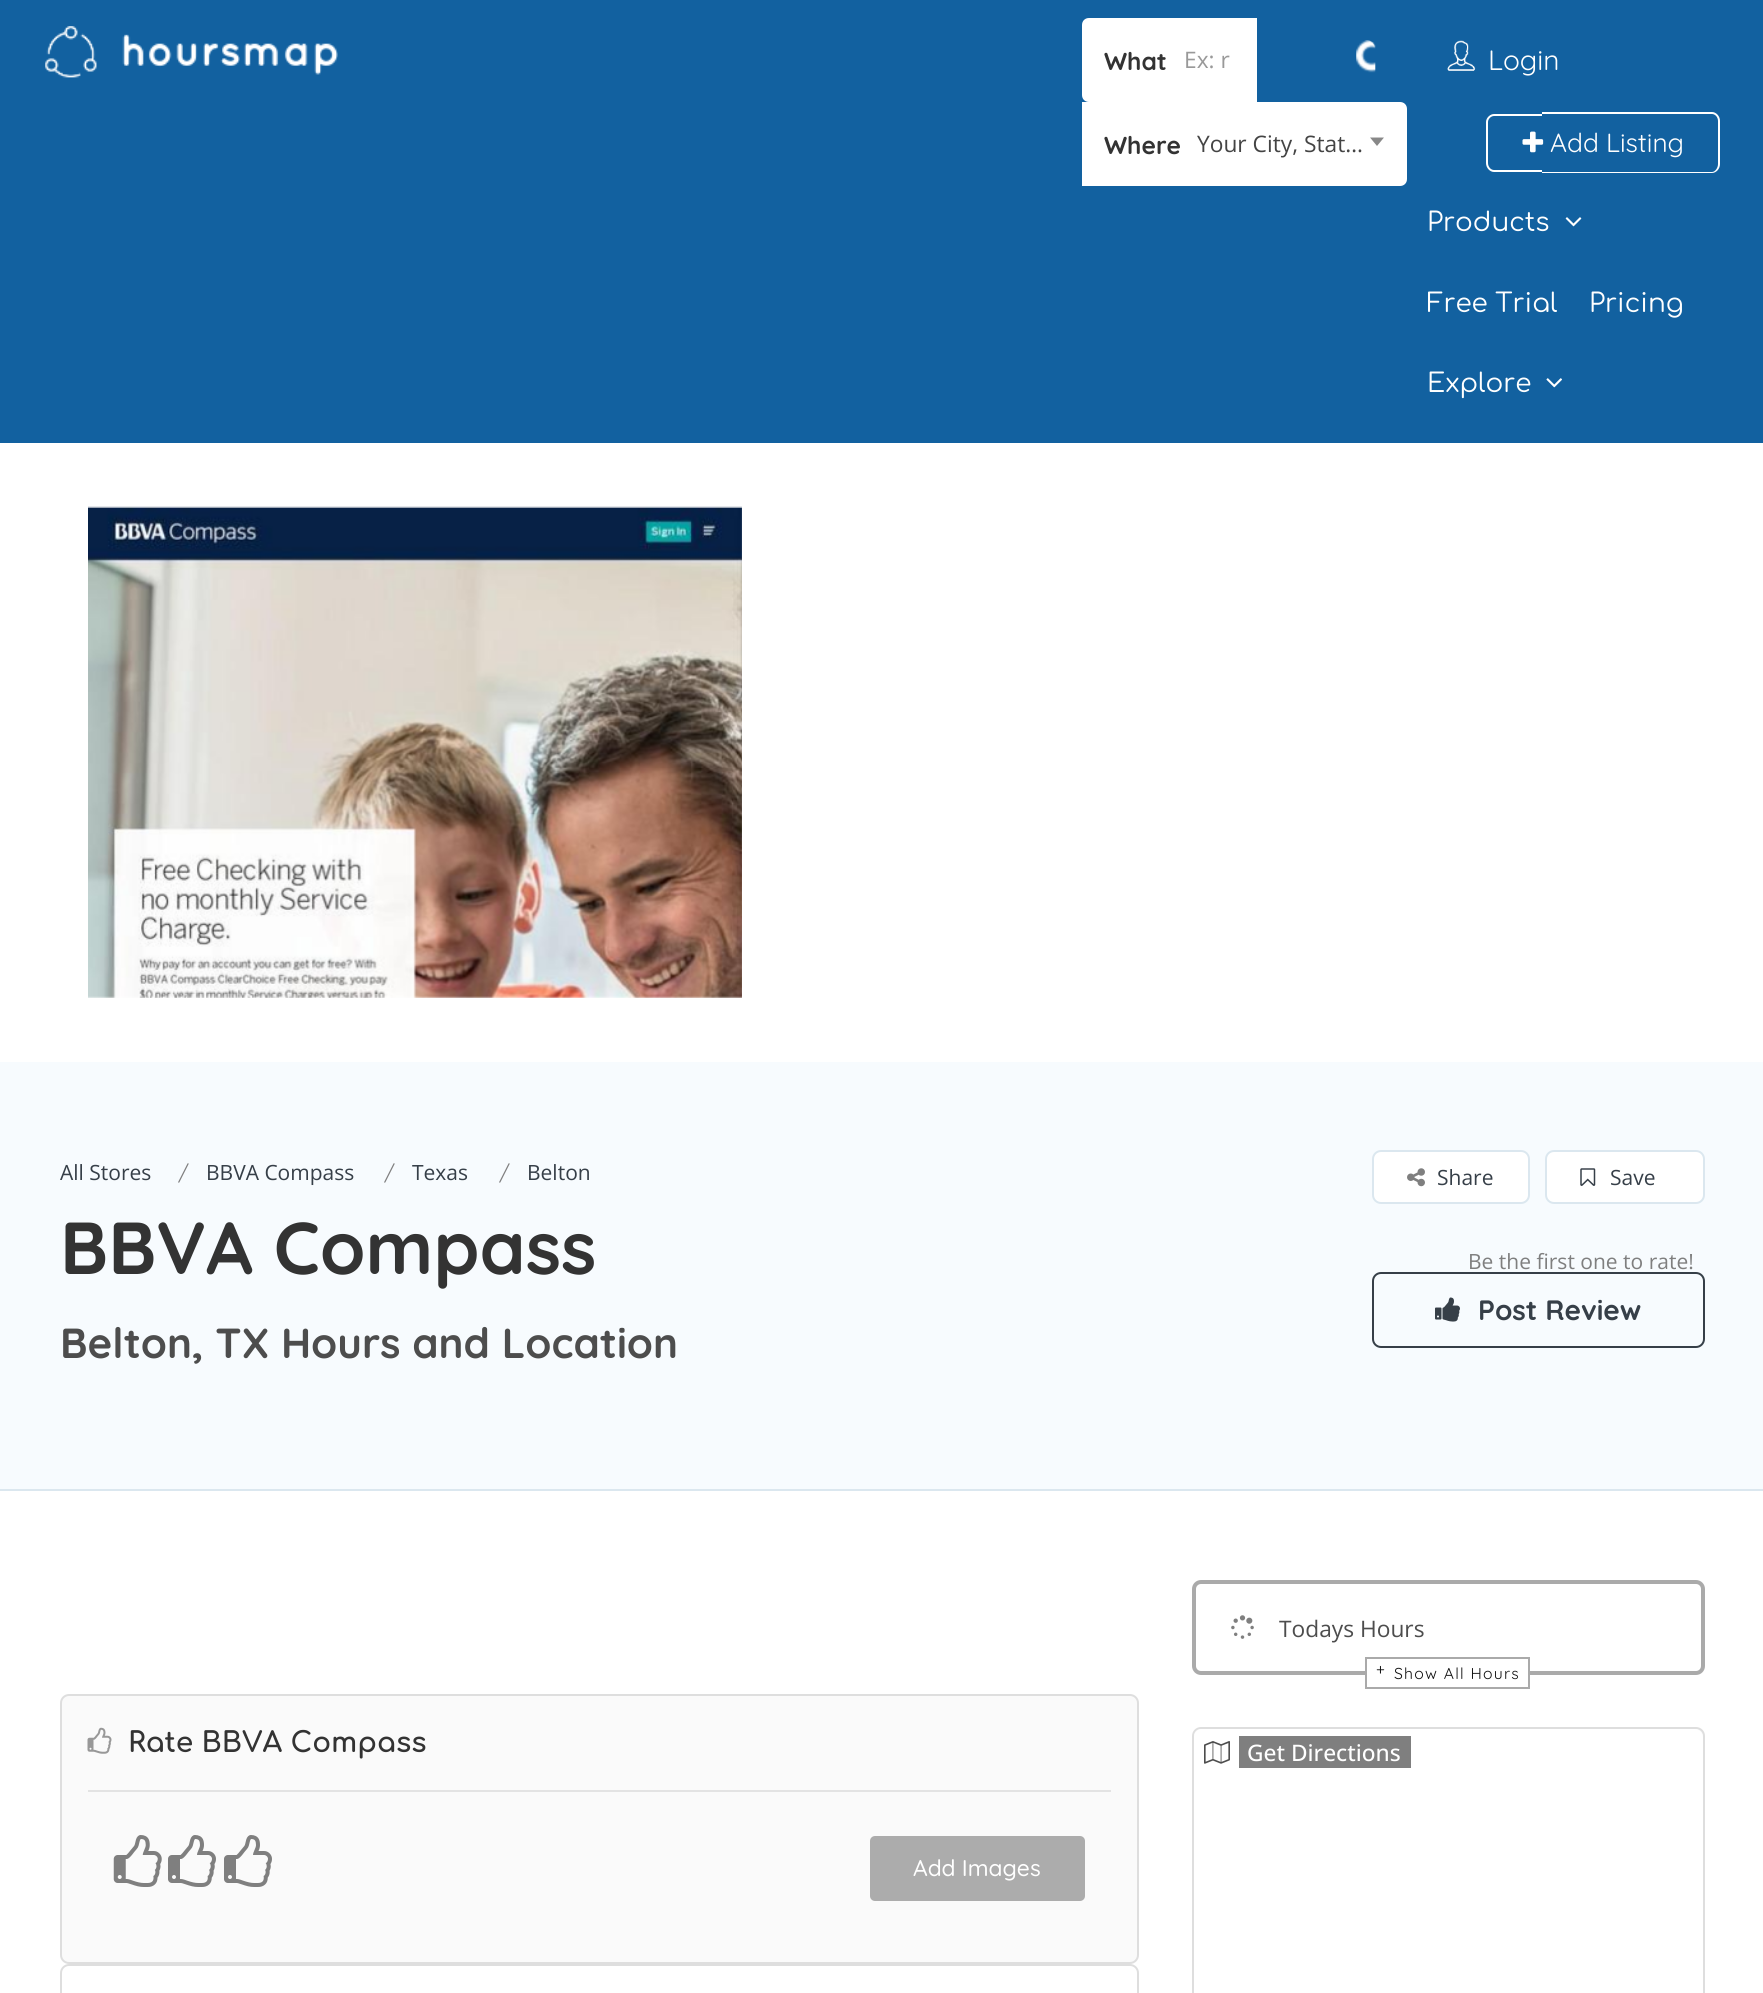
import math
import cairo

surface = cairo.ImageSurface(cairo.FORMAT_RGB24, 1763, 1993)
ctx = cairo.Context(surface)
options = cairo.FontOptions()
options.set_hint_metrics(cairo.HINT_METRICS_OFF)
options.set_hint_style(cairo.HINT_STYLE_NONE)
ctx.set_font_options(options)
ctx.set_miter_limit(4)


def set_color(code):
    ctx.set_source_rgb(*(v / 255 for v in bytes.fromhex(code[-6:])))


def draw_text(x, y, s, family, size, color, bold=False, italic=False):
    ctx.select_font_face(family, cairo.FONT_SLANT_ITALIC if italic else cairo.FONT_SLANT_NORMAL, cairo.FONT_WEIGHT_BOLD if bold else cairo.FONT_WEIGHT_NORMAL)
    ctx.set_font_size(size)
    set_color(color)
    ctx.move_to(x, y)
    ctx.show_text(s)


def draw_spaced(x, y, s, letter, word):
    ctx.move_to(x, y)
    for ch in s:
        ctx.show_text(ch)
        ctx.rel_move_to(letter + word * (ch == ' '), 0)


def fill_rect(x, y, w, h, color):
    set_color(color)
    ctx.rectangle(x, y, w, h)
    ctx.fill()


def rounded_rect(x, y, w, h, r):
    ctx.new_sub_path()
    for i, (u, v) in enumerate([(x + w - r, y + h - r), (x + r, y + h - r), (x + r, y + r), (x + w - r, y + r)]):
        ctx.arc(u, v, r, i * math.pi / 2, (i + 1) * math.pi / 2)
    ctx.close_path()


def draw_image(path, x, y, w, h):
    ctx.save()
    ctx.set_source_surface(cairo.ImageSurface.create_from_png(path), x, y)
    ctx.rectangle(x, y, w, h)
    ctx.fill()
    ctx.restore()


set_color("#f7fbfe")
ctx.paint()
fill_rect(0, 0, 1763, 443, "#1261a0")
draw_image("assets/img1.png", 45, 26, 293, 52)
set_color("#ffffff")
ctx.new_path()
ctx.move_to(1089, 19)
ctx.line_to(1256, 19)
ctx.line_to(1256, 101)
ctx.line_to(1089, 101)
ctx.curve_to(1085.5, 101, 1083, 98.5, 1083, 95)
ctx.line_to(1083, 25)
ctx.curve_to(1083, 21.5, 1085.5, 19, 1089, 19)
ctx.close_path()
ctx.fill_preserve()
ctx.stroke()
draw_text(1104, 70, "What", "Quicksand", 24.5, "#333333", bold=True)
draw_text(1184, 68, "Ex: r", "Open Sans", 22.75, "#999999")
draw_image("assets/img2.png", 1356, 40, 20, 33)
set_color("#ffffff")
ctx.new_path()
ctx.move_to(1083, 103)
ctx.line_to(1400, 103)
ctx.curve_to(1403.5, 103, 1406, 105.5, 1406, 109)
ctx.line_to(1406, 179)
ctx.curve_to(1406, 182.5, 1403.5, 185, 1400, 185)
ctx.line_to(1083, 185)
ctx.close_path()
ctx.fill_preserve()
ctx.stroke()
draw_text(1104, 154, "Where", "Quicksand", 24.5, "#333333", bold=True)
draw_text(1197, 152, "Your City, Stat…", "Open Sans", 22.75, "#444444")
set_color("#888888")
ctx.new_path()
ctx.move_to(1370, 137.5)
ctx.line_to(1384, 137.5)
ctx.line_to(1377, 146)
ctx.close_path()
ctx.fill()
draw_image("assets/img3.png", 1447, 40, 29, 31)
draw_text(1488, 70, "Login", "Quicksand", 28, "#ffffff")
ctx.set_fill_rule(cairo.FILL_RULE_EVEN_ODD)
ctx.new_path()
ctx.move_to(1494, 114)
ctx.line_to(1542, 114)
ctx.line_to(1542, 172)
ctx.line_to(1494, 172)
ctx.curve_to(1490, 172, 1486, 168, 1486, 163)
ctx.line_to(1486, 122)
ctx.curve_to(1486, 118, 1490, 114, 1494, 114)
ctx.close_path()
ctx.move_to(1494, 116)
ctx.line_to(1542, 116)
ctx.line_to(1542, 170)
ctx.line_to(1494, 170)
ctx.curve_to(1491, 170, 1488, 167, 1488, 163)
ctx.line_to(1488, 122)
ctx.curve_to(1488, 119, 1491, 116, 1494, 116)
ctx.close_path()
ctx.fill()
ctx.new_path()
ctx.move_to(1542, 112)
ctx.line_to(1712, 112)
ctx.curve_to(1716, 112, 1720, 116, 1720, 121)
ctx.line_to(1720, 164)
ctx.curve_to(1720, 169, 1716, 173, 1712, 173)
ctx.line_to(1542, 173)
ctx.close_path()
ctx.move_to(1542, 114)
ctx.line_to(1712, 114)
ctx.curve_to(1715, 114, 1718, 117, 1718, 121)
ctx.line_to(1718, 164)
ctx.curve_to(1718, 168, 1715, 172, 1712, 172)
ctx.line_to(1542, 172)
ctx.close_path()
ctx.fill()
draw_image("assets/img4.png", 1522, 131, 22, 22)
draw_text(1550, 152, "Add Listing", "Quicksand", 26.25, "#ffffff")
draw_text(1427, 231, "Products", "Comfortaa", 26.25, "#ffffff")
draw_image("assets/img5.png", 1565, 217, 17, 10)
draw_text(1427, 312, "Free Trial", "Comfortaa", 26.25, "#ffffff")
draw_text(1589, 312, "Pricing", "Comfortaa", 26.25, "#ffffff")
draw_text(1427, 392, "Explore", "Comfortaa", 26.25, "#ffffff")
draw_image("assets/img6.png", 1546, 378, 16, 10)
fill_rect(0, 443, 1763, 619, "#ffffff")
draw_image("assets/img7.png", 88, 506, 654, 492)
fill_rect(0, 1489, 1763, 2, "#dbe7ef")
draw_text(60, 1180, "All Stores", "Open Sans", 21, "#363f48")
draw_text(178, 1180, "/", "Quicksand", 21, "#7f7f7f")
draw_text(206, 1180, "BBVA Compass", "Open Sans", 21, "#363f48")
draw_text(384, 1180, "/", "Quicksand", 21, "#7f7f7f")
draw_text(412, 1180, "Texas", "Open Sans", 21, "#363f48")
draw_text(499, 1180, "/", "Quicksand", 21, "#7f7f7f")
draw_text(527, 1180, "Belton", "Open Sans", 21, "#363f48")
draw_text(60, 1274, "BBVA Compass", "Quicksand", 73.5, "#333333", bold=True)
draw_text(60, 1358, "Belton, TX Hours and Location", "Quicksand", 42, "#4d4d4d", bold=True)
set_color("#ffffff")
rounded_rect(1373, 1151, 156, 52, 8)
ctx.fill_preserve()
set_color("#dbe7ef")
ctx.stroke()
draw_image("assets/img8.png", 1407, 1168, 18, 19)
draw_text(1437, 1185, "Share", "Open Sans", 21, "#363f48")
set_color("#ffffff")
rounded_rect(1546, 1151, 158, 52, 8)
ctx.fill_preserve()
set_color("#dbe7ef")
ctx.stroke()
draw_image("assets/img9.png", 1580, 1168, 16, 18)
draw_text(1610, 1185, "Save", "Open Sans", 21, "#363f48")
draw_text(1468, 1269, "Be the first one to rate!", "Open Sans", 21, "#7f7f7f")
rounded_rect(1373, 1273, 331, 74, 8)
set_color("#363f48")
ctx.stroke()
draw_image("assets/img10.png", 1435, 1297, 25, 25)
draw_text(1478, 1320, "Post Review", "Quicksand", 28, "#363f48", bold=True)
fill_rect(0, 1491, 1763, 502, "#ffffff")
rounded_rect(1194, 1582, 509, 91, 7)
set_color("#aaaaaa")
ctx.set_line_width(4)
ctx.stroke()
draw_image("assets/img11.png", 1231, 1615, 23, 24)
draw_text(1279, 1637, "Todays Hours", "Open Sans", 22.75, "#4d4d4d")
fill_rect(1367, 1671, 161, 4, "#ffffff")
ctx.rectangle(1366, 1658, 163, 30)
set_color("#aaaaaa")
ctx.set_line_width(2)
ctx.stroke()
ctx.select_font_face("Quicksand")
ctx.set_font_size(15.75)
set_color("#111111")
draw_spaced(1376, 1675, "+", 1.25, 0)
draw_spaced(1394, 1679, "Show All Hours", 1.25, 0)
set_color("#fafafa")
rounded_rect(1193, 1728, 511, 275, 8)
ctx.fill_preserve()
set_color("#dedede")
ctx.stroke()
set_color("#ffffff")
rounded_rect(1194, 1729, 509, 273, 9)
ctx.fill()
ctx.set_source_rgba(1, 1, 1, 0.5)
ctx.new_path()
ctx.move_to(1201, 1729)
ctx.line_to(1428, 1729)
ctx.line_to(1428, 1775)
ctx.line_to(1194, 1775)
ctx.line_to(1194, 1736)
ctx.curve_to(1194, 1732, 1197, 1729, 1201, 1729)
ctx.close_path()
ctx.fill()
draw_image("assets/img12.png", 1204, 1741, 26, 23)
fill_rect(1239, 1736, 172, 32, "#7f7f7f")
draw_text(1247, 1761, "Get Directions", "Open Sans Medium", 22.75, "#ffffff")
set_color("#fafafa")
rounded_rect(61, 1695, 1077, 268, 8)
ctx.fill_preserve()
set_color("#dedede")
ctx.stroke()
draw_image("assets/img13.png", 87, 1727, 25, 27)
draw_text(128, 1752, "Rate BBVA Compass", "Comfortaa", 28, "#333333", bold=True)
fill_rect(88, 1790, 1023, 2, "#e3e3e3")
draw_image("assets/img14.png", 113, 1835, 49, 52)
draw_image("assets/img15.png", 168, 1835, 48, 52)
draw_image("assets/img15.png", 224, 1835, 48, 52)
set_color("#acacac")
rounded_rect(870, 1836, 215, 65, 5)
ctx.fill()
draw_text(913, 1876, "Add Images", "Quicksand Medium", 22.75, "#ffffff")
rounded_rect(61, 1965, 1077, 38, 8)
set_color("#dedede")
ctx.stroke()
surface.write_to_png("output.png")
